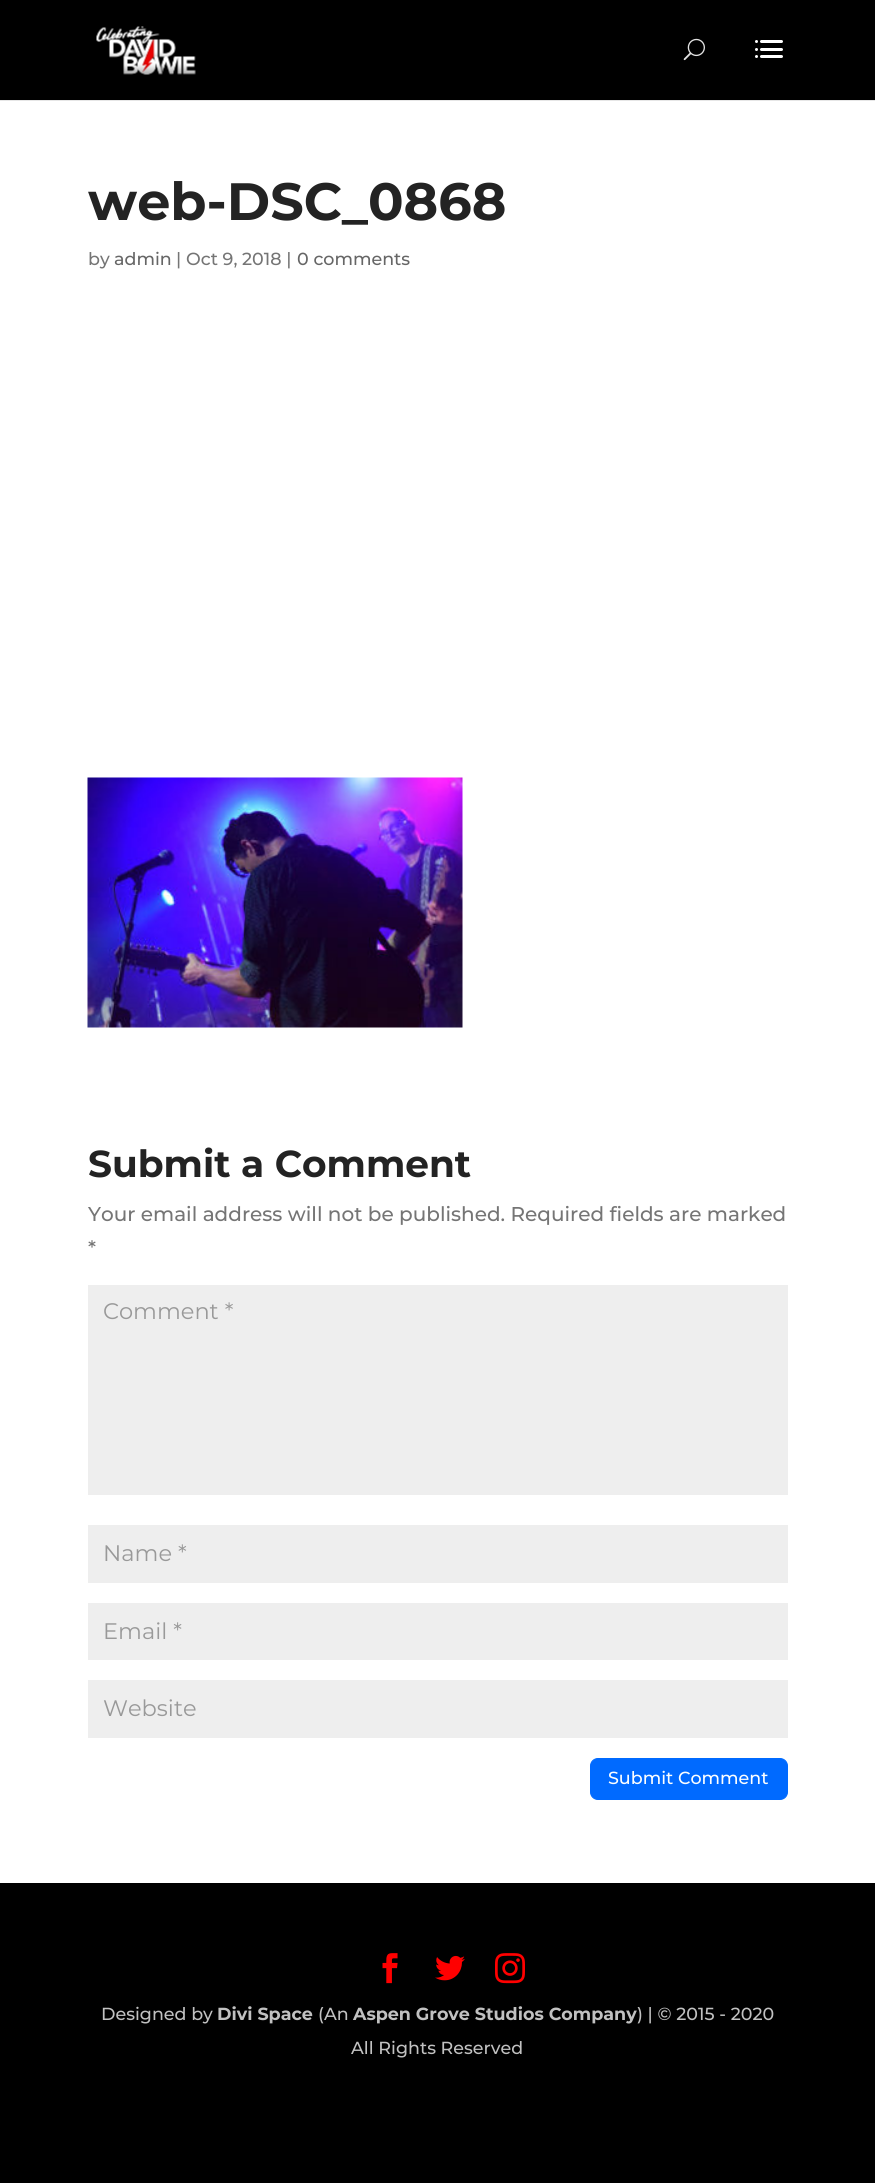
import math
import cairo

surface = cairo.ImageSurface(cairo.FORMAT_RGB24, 875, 2183)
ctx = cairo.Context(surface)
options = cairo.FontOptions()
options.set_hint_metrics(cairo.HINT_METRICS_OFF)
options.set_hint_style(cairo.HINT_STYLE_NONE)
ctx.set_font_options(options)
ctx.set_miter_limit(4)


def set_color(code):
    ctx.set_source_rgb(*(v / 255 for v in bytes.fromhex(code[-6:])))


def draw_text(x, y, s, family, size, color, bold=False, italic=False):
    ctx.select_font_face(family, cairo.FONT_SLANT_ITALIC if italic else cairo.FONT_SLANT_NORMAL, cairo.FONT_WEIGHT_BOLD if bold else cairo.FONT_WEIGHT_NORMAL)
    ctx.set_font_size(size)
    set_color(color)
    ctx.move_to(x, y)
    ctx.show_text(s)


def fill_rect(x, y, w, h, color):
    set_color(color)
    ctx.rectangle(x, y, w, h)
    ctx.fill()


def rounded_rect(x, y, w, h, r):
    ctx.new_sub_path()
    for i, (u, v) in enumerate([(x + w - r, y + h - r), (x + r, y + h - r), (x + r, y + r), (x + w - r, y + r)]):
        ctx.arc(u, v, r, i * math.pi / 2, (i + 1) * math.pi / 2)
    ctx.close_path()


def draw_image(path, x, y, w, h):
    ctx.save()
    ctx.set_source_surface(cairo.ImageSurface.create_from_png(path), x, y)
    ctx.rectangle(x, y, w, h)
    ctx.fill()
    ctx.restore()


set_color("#000000")
ctx.paint()
fill_rect(0, 100, 875, 1, "#e6e6e6")
draw_image("assets/img1.png", 96, 26, 100, 49)
draw_image("assets/img2.png", 683, 38, 22, 23)
set_color("#ffffff")
ctx.arc(756.5, 41.5, 1.5, 0, 2 * math.pi)
ctx.fill()
rounded_rect(760, 40, 23, 3, 1.5)
ctx.fill()
ctx.arc(756.5, 49.5, 1.5, 0, 2 * math.pi)
ctx.fill()
rounded_rect(760, 48, 23, 3, 1.5)
ctx.fill()
ctx.arc(756.5, 56.5, 1.5, 0, 2 * math.pi)
ctx.fill()
rounded_rect(760, 55, 23, 3, 1.5)
ctx.fill()
fill_rect(0, 101, 875, 1782, "#ffffff")
draw_text(88, 220, "web-DSC_0868", "Montserrat", 52.5, "#232323", bold=True)
draw_text(88, 265, "by", "Montserrat Medium", 17.5, "#757575")
draw_text(114, 265, "admin", "Montserrat Medium", 17.5, "#666666")
draw_text(176, 265, "| Oct 9, 2018 |", "Montserrat Medium", 17.5, "#757575")
draw_text(297, 265, "0 comments", "Montserrat Medium", 17.5, "#666666")
draw_image("assets/img3.png", 87, 777, 376, 251)
draw_text(88, 1177, "Submit a Comment", "Montserrat", 37.5, "#232323", bold=True)
draw_text(88, 1221, "Your email address will not be published. Required fields are marked", "Montserrat Medium", 20, "#757575")
draw_text(88, 1255, "*", "Montserrat Medium", 20, "#757575")
fill_rect(88, 1285, 700, 210, "#eeeeee")
draw_text(103, 1319, "Comment *", "Montserrat", 22.5, "#999999")
fill_rect(88, 1525, 700, 58, "#eeeeee")
draw_text(103, 1561, "Name *", "Montserrat", 22.5, "#999999")
fill_rect(88, 1603, 700, 57, "#eeeeee")
draw_text(103, 1639, "Email *", "Montserrat", 22.5, "#999999")
fill_rect(88, 1680, 700, 58, "#eeeeee")
draw_text(103, 1716, "Website", "Montserrat", 22.5, "#999999")
set_color("#006aff")
rounded_rect(590.5, 1758.5, 197, 41, 7.5)
ctx.fill_preserve()
ctx.set_line_width(1)
ctx.stroke()
draw_text(608, 1784, "Submit Comment", "Montserrat Medium", 17.5, "#fcfeff")
draw_image("assets/img4.png", 382, 1953, 16, 31)
draw_image("assets/img5.png", 435, 1955, 30, 26)
draw_image("assets/img6.png", 495, 1953, 30, 31)
draw_text(101, 2020, "Designed by", "Montserrat Medium", 17.5, "#c1c1c1")
draw_text(217, 2020, "Divi Space", "Montserrat", 17.5, "#c1c1c1", bold=True)
draw_text(318, 2020, "(An", "Montserrat Medium", 17.5, "#c1c1c1")
draw_text(353, 2020, "Aspen Grove Studios Company", "Montserrat", 17.5, "#c1c1c1", bold=True)
draw_text(637, 2020, ") | © 2015 - 2020", "Montserrat Medium", 17.5, "#c1c1c1")
draw_text(351, 2054, "All Rights Reserved", "Montserrat Medium", 17.5, "#c1c1c1")
surface.write_to_png("output.png")
